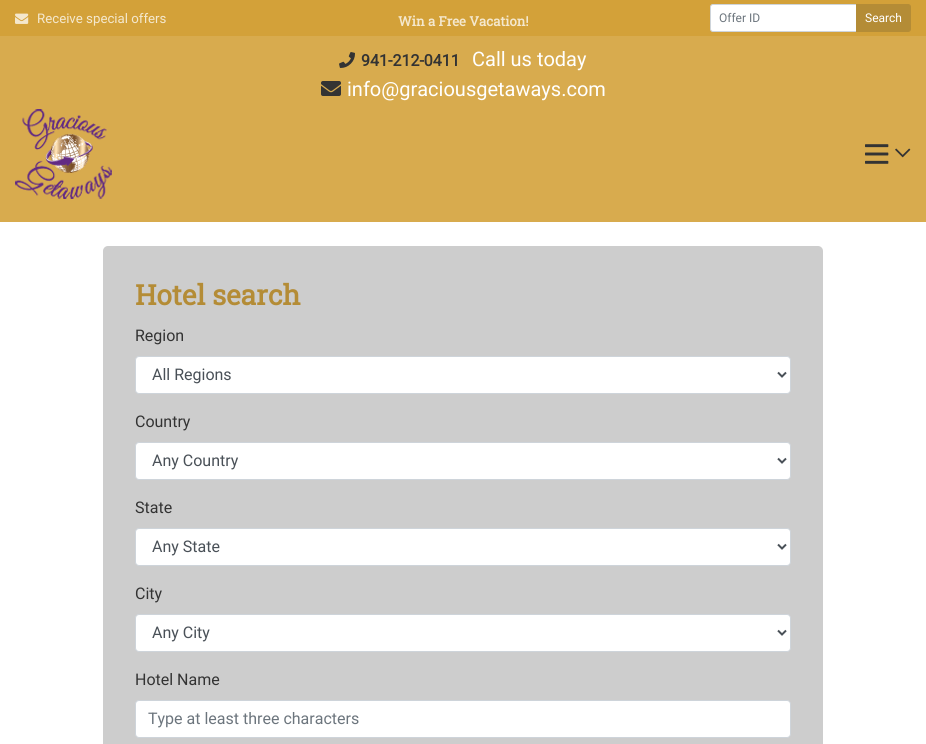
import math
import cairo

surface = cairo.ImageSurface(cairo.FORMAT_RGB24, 926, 744)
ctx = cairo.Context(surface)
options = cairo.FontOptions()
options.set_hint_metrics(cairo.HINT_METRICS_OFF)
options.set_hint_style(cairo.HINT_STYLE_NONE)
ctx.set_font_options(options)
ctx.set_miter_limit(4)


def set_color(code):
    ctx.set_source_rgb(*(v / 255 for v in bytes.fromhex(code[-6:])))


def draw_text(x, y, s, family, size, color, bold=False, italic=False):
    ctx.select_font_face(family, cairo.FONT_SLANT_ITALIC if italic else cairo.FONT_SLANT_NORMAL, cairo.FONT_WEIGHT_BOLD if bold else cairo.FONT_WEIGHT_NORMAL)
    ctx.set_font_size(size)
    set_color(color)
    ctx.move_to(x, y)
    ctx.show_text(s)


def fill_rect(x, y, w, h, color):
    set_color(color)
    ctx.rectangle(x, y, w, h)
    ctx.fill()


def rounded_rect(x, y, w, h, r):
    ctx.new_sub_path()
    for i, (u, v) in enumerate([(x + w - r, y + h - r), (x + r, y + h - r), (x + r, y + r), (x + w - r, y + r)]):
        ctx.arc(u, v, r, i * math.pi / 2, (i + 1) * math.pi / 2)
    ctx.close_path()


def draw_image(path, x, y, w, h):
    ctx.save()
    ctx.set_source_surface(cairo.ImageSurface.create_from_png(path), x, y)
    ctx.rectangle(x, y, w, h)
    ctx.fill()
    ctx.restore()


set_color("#ffffff")
ctx.paint()
fill_rect(0, 36, 926, 186, "#d8ab4e")
fill_rect(0, 0, 926, 36, "#d3a139")
draw_image("assets/img1.png", 15, 13, 14, 11)
draw_text(37, 23, "Receive special offers", "Roboto", 13.25, "#f4e8ce")
draw_text(398, 26, "Win a Free Vacation!", "Roboto Slab", 13.25, "#f4e8ce", bold=True)
set_color("#ffffff")
ctx.new_path()
ctx.move_to(713, 4.5)
ctx.line_to(856.5, 4.5)
ctx.line_to(856.5, 31.5)
ctx.line_to(713, 31.5)
ctx.curve_to(711.5, 31.5, 710.5, 30.5, 710.5, 29)
ctx.line_to(710.5, 7)
ctx.curve_to(710.5, 5.5, 711.5, 4.5, 713, 4.5)
ctx.close_path()
ctx.fill_preserve()
set_color("#ced4da")
ctx.set_line_width(1)
ctx.stroke()
draw_text(719, 22, "Offer ID", "Roboto", 12, "#6c757d")
set_color("#b48c36")
ctx.new_path()
ctx.move_to(856.5, 4.5)
ctx.line_to(908, 4.5)
ctx.curve_to(909.5, 4.5, 910.5, 5.5, 910.5, 7)
ctx.line_to(910.5, 29)
ctx.curve_to(910.5, 30.5, 909.5, 31.5, 908, 31.5)
ctx.line_to(856.5, 31.5)
ctx.close_path()
ctx.fill_preserve()
ctx.stroke()
draw_text(865, 22, "Search", "Roboto", 12, "#ffffff")
draw_image("assets/img2.png", 339, 52, 16, 16)
draw_text(361, 66, "941-212-0411", "Roboto", 16, "#333333", bold=True)
draw_text(472, 66, "Call us today", "Roboto", 20, "#ffffff")
draw_image("assets/img3.png", 321, 81, 20, 15)
draw_text(347, 96, "info@graciousgetaways.com", "Roboto", 20, "#ffffff")
draw_image("assets/img4.png", 15, 109, 97, 90)
draw_image("assets/img5.png", 865, 144, 24, 20)
draw_image("assets/img6.png", 895, 148, 16, 10)
set_color("#cdcdcd")
rounded_rect(103, 246, 720, 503, 5)
ctx.fill()
draw_text(135, 305, "Hotel search", "Roboto Slab", 28, "#b48c36", bold=True)
draw_text(135, 341, "Region", "Roboto", 16, "#333333")
set_color("#ffffff")
rounded_rect(135.5, 356.5, 655, 37, 3.5)
ctx.fill_preserve()
set_color("#ced4da")
ctx.stroke()
ctx.new_path()
ctx.move_to(778, 372.5)
ctx.line_to(782, 376.5)
ctx.line_to(786, 372.5)
set_color("#495057")
ctx.set_line_width(2)
ctx.stroke()
draw_text(152, 380, "All Regions", "Roboto", 16, "#495057")
draw_text(135, 427, "Country", "Roboto", 16, "#333333")
set_color("#ffffff")
rounded_rect(135.5, 442.5, 655, 37, 3.5)
ctx.fill_preserve()
set_color("#ced4da")
ctx.set_line_width(1)
ctx.stroke()
ctx.new_path()
ctx.move_to(778, 458.5)
ctx.line_to(782, 462.5)
ctx.line_to(786, 458.5)
set_color("#495057")
ctx.set_line_width(2)
ctx.stroke()
draw_text(152, 466, "Any Country", "Roboto", 16, "#495057")
draw_text(135, 513, "State", "Roboto", 16, "#333333")
set_color("#ffffff")
rounded_rect(135.5, 528.5, 655, 37, 3.5)
ctx.fill_preserve()
set_color("#ced4da")
ctx.set_line_width(1)
ctx.stroke()
ctx.new_path()
ctx.move_to(778, 544.5)
ctx.line_to(782, 548.5)
ctx.line_to(786, 544.5)
set_color("#495057")
ctx.set_line_width(2)
ctx.stroke()
draw_text(152, 552, "Any State", "Roboto", 16, "#495057")
draw_text(135, 599, "City", "Roboto", 16, "#333333")
set_color("#ffffff")
rounded_rect(135.5, 614.5, 655, 37, 3.5)
ctx.fill_preserve()
set_color("#ced4da")
ctx.set_line_width(1)
ctx.stroke()
ctx.new_path()
ctx.move_to(778, 630.5)
ctx.line_to(782, 634.5)
ctx.line_to(786, 630.5)
set_color("#495057")
ctx.set_line_width(2)
ctx.stroke()
draw_text(152, 638, "Any City", "Roboto", 16, "#495057")
draw_text(135, 685, "Hotel Name", "Roboto", 16, "#333333")
set_color("#ffffff")
rounded_rect(135.5, 700.5, 655, 37, 3.5)
ctx.fill_preserve()
set_color("#ced4da")
ctx.set_line_width(1)
ctx.stroke()
draw_text(148, 724, "Type at least three characters", "Roboto", 16, "#6c757d")
surface.write_to_png("output.png")
